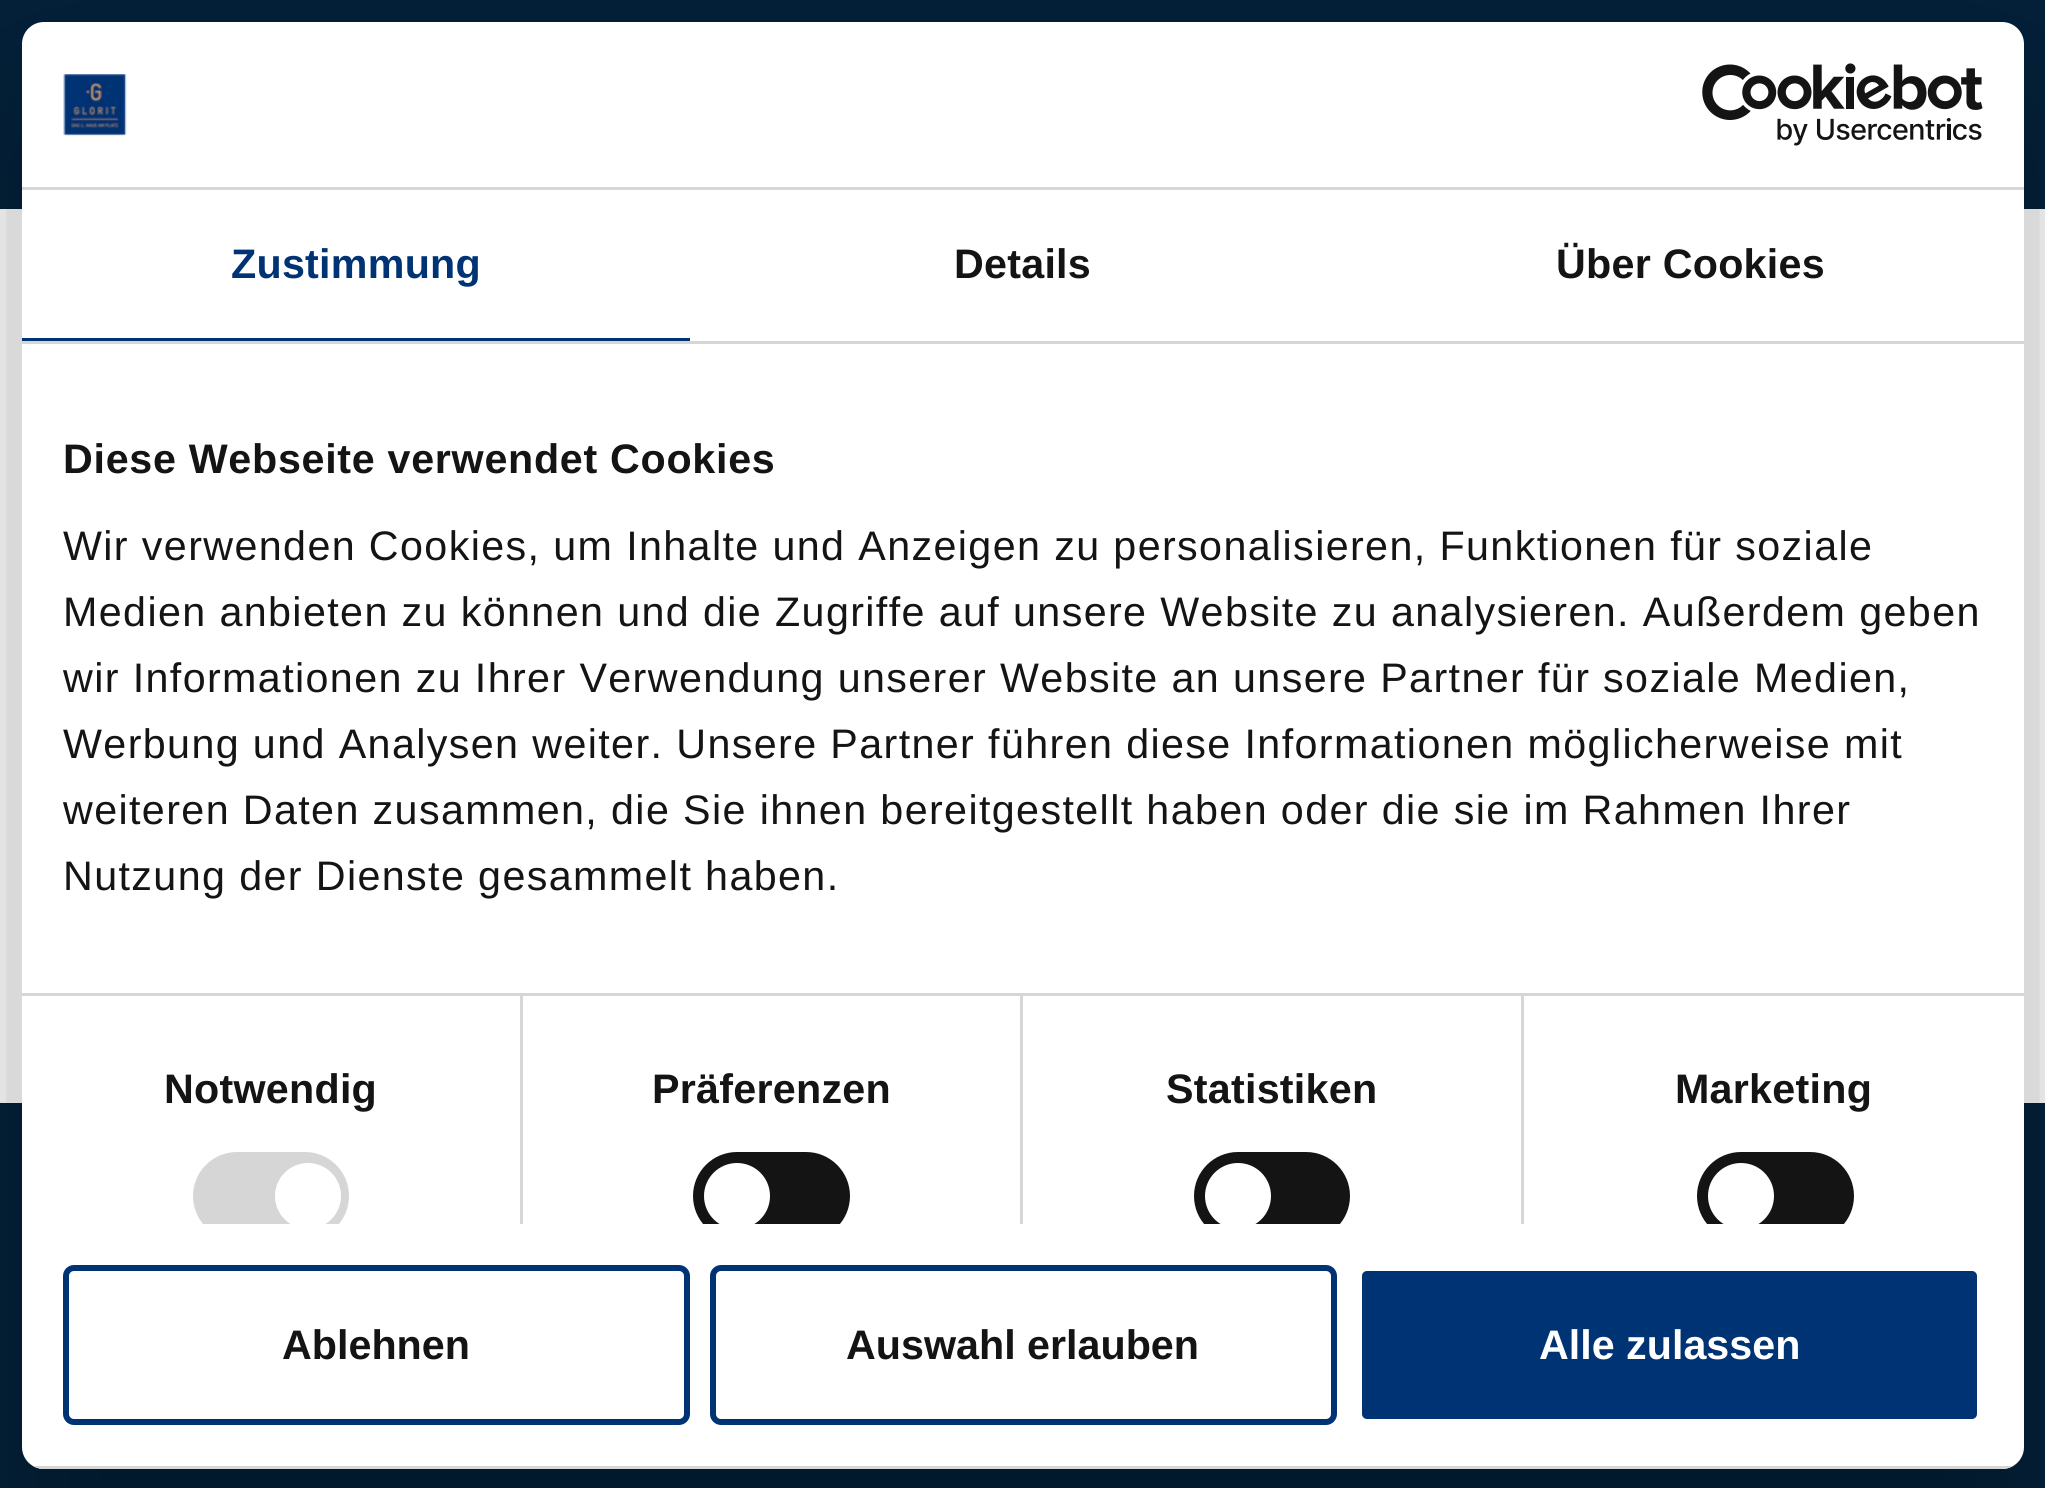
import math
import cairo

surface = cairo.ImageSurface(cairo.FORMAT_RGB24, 2045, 1488)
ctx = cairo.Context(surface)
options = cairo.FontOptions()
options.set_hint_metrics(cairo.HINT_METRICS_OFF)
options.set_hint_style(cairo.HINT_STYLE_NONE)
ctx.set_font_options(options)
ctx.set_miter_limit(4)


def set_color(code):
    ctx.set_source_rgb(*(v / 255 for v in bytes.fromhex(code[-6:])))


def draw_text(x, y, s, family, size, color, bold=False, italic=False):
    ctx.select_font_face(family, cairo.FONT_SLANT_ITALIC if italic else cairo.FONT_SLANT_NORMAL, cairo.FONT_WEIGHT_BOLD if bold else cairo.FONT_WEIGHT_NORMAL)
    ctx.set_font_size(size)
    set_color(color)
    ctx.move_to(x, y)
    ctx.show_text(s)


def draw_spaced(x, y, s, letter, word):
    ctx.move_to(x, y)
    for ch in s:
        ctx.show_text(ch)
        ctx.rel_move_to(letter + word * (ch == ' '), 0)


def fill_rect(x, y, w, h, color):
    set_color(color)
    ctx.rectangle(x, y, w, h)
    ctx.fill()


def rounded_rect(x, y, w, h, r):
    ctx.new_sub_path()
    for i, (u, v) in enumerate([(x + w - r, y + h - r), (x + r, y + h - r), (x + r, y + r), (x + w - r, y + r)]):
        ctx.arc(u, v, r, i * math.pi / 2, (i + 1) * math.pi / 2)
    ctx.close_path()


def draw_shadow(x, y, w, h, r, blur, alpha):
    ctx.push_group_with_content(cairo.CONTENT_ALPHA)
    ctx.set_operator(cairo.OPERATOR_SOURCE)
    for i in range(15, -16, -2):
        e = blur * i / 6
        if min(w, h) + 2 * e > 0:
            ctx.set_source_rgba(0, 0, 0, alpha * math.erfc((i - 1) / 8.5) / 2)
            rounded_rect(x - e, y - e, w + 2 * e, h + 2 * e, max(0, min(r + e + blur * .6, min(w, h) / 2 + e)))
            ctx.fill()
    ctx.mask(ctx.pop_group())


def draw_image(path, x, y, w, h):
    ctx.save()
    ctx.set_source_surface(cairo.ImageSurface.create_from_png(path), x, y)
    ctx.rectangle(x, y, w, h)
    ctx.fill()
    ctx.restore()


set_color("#ffffff")
ctx.paint()
fill_rect(0, 0, 2045, 209, "#03213a")
fill_rect(0, 1103, 2045, 385, "#03213a")
set_color("#000000")
draw_shadow(22, 110, 2002, 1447, 22, 93.5, 0.3)
set_color("#ffffff")
rounded_rect(22, 22, 2002, 1447, 22)
ctx.fill()
fill_rect(22, 187, 2002, 3, "#d6d6d6")
draw_image("assets/img1.png", 63, 74, 64, 62)
draw_image("assets/img2.png", 1702, 63, 281, 83)
fill_rect(22, 341, 2002, 3, "#d6d6d6")
fill_rect(22, 338, 668, 3, "#003374")
ctx.select_font_face("Liberation Sans", cairo.FONT_SLANT_NORMAL, cairo.FONT_WEIGHT_BOLD)
ctx.set_font_size(41.25)
draw_spaced(231, 278, "Zustimmung", 0.25, 0)
set_color("#141414")
draw_spaced(954, 278, "Details", 0.25, 0)
draw_spaced(1556, 278, "Über Cookies", 0.25, 0)
fill_rect(22, 993, 2002, 3, "#d6d6d6")
set_color("#141414")
draw_spaced(63, 473, "Diese Webseite verwendet Cookies", 0.7, 0)
ctx.select_font_face("Liberation Sans")
draw_spaced(63, 560, "Wir verwenden Cookies, um Inhalte und Anzeigen zu personalisieren, Funktionen für soziale", 1.38, 0)
draw_spaced(63, 626, "Medien anbieten zu können und die Zugriffe auf unsere Website zu analysieren. Außerdem geben", 1.38, 0)
draw_spaced(63, 692, "wir Informationen zu Ihrer Verwendung unserer Website an unsere Partner für soziale Medien,", 1.38, 0)
draw_spaced(63, 758, "Werbung und Analysen weiter. Unsere Partner führen diese Informationen möglicherweise mit", 1.38, 0)
draw_spaced(63, 824, "weiteren Daten zusammen, die Sie ihnen bereitgestellt haben oder die sie im Rahmen Ihrer", 1.38, 0)
draw_spaced(63, 890, "Nutzung der Dienste gesammelt haben.", 1.38, 0)
fill_rect(520, 996, 3, 228, "#d6d6d6")
ctx.select_font_face("Liberation Sans", cairo.FONT_SLANT_NORMAL, cairo.FONT_WEIGHT_BOLD)
set_color("#141414")
draw_spaced(164, 1103, "Notwendig", 0.25, 0)
ctx.save()
ctx.rectangle(22, 344, 2002, 880)
ctx.clip()
set_color("#d6d6d6")
rounded_rect(193, 1152, 156, 88, 44)
ctx.fill()
set_color("#ffffff")
ctx.arc(308, 1196, 33, 0, 2 * math.pi)
ctx.fill()
ctx.restore()
fill_rect(1020, 996, 3, 228, "#d6d6d6")
set_color("#141414")
draw_spaced(652, 1103, "Präferenzen", 0.25, 0)
ctx.save()
ctx.rectangle(22, 344, 2002, 880)
ctx.clip()
rounded_rect(693, 1152, 157, 88, 44)
ctx.fill()
set_color("#ffffff")
ctx.arc(737, 1196, 33, 0, 2 * math.pi)
ctx.fill()
ctx.restore()
fill_rect(1521, 996, 3, 228, "#d6d6d6")
set_color("#141414")
draw_spaced(1166, 1103, "Statistiken", 0.25, 0)
ctx.save()
ctx.rectangle(22, 344, 2002, 880)
ctx.clip()
rounded_rect(1194, 1152, 156, 88, 44)
ctx.fill()
set_color("#ffffff")
ctx.arc(1238, 1196, 33, 0, 2 * math.pi)
ctx.fill()
ctx.restore()
draw_spaced(1675, 1103, "Marketing", 0.25, 0)
ctx.save()
ctx.rectangle(22, 344, 2002, 880)
ctx.clip()
rounded_rect(1697, 1152, 157, 88, 44)
ctx.fill()
set_color("#ffffff")
ctx.arc(1741, 1196, 33, 0, 2 * math.pi)
ctx.fill()
ctx.restore()
ctx.save()
rounded_rect(22, 22, 2002, 1447, 22)
ctx.clip()
fill_rect(33, 1466, 1980, 3, "#d6d6d6")
ctx.restore()
rounded_rect(66, 1268, 621, 154, 8)
set_color("#003374")
ctx.set_line_width(6)
ctx.stroke()
draw_text(282, 1359, "Ablehnen", "Liberation Sans", 41.25, "#141414", bold=True)
rounded_rect(713, 1268, 621, 154, 8)
set_color("#003374")
ctx.stroke()
draw_text(846, 1359, "Auswahl erlauben", "Liberation Sans", 41.25, "#141414", bold=True)
set_color("#003374")
rounded_rect(1359, 1268, 621, 154, 8)
ctx.fill_preserve()
set_color("#ffffff")
ctx.stroke()
draw_text(1539, 1359, "Alle zulassen", "Liberation Sans", 41.25, "#ffffff", bold=True)
surface.write_to_png("output.png")
